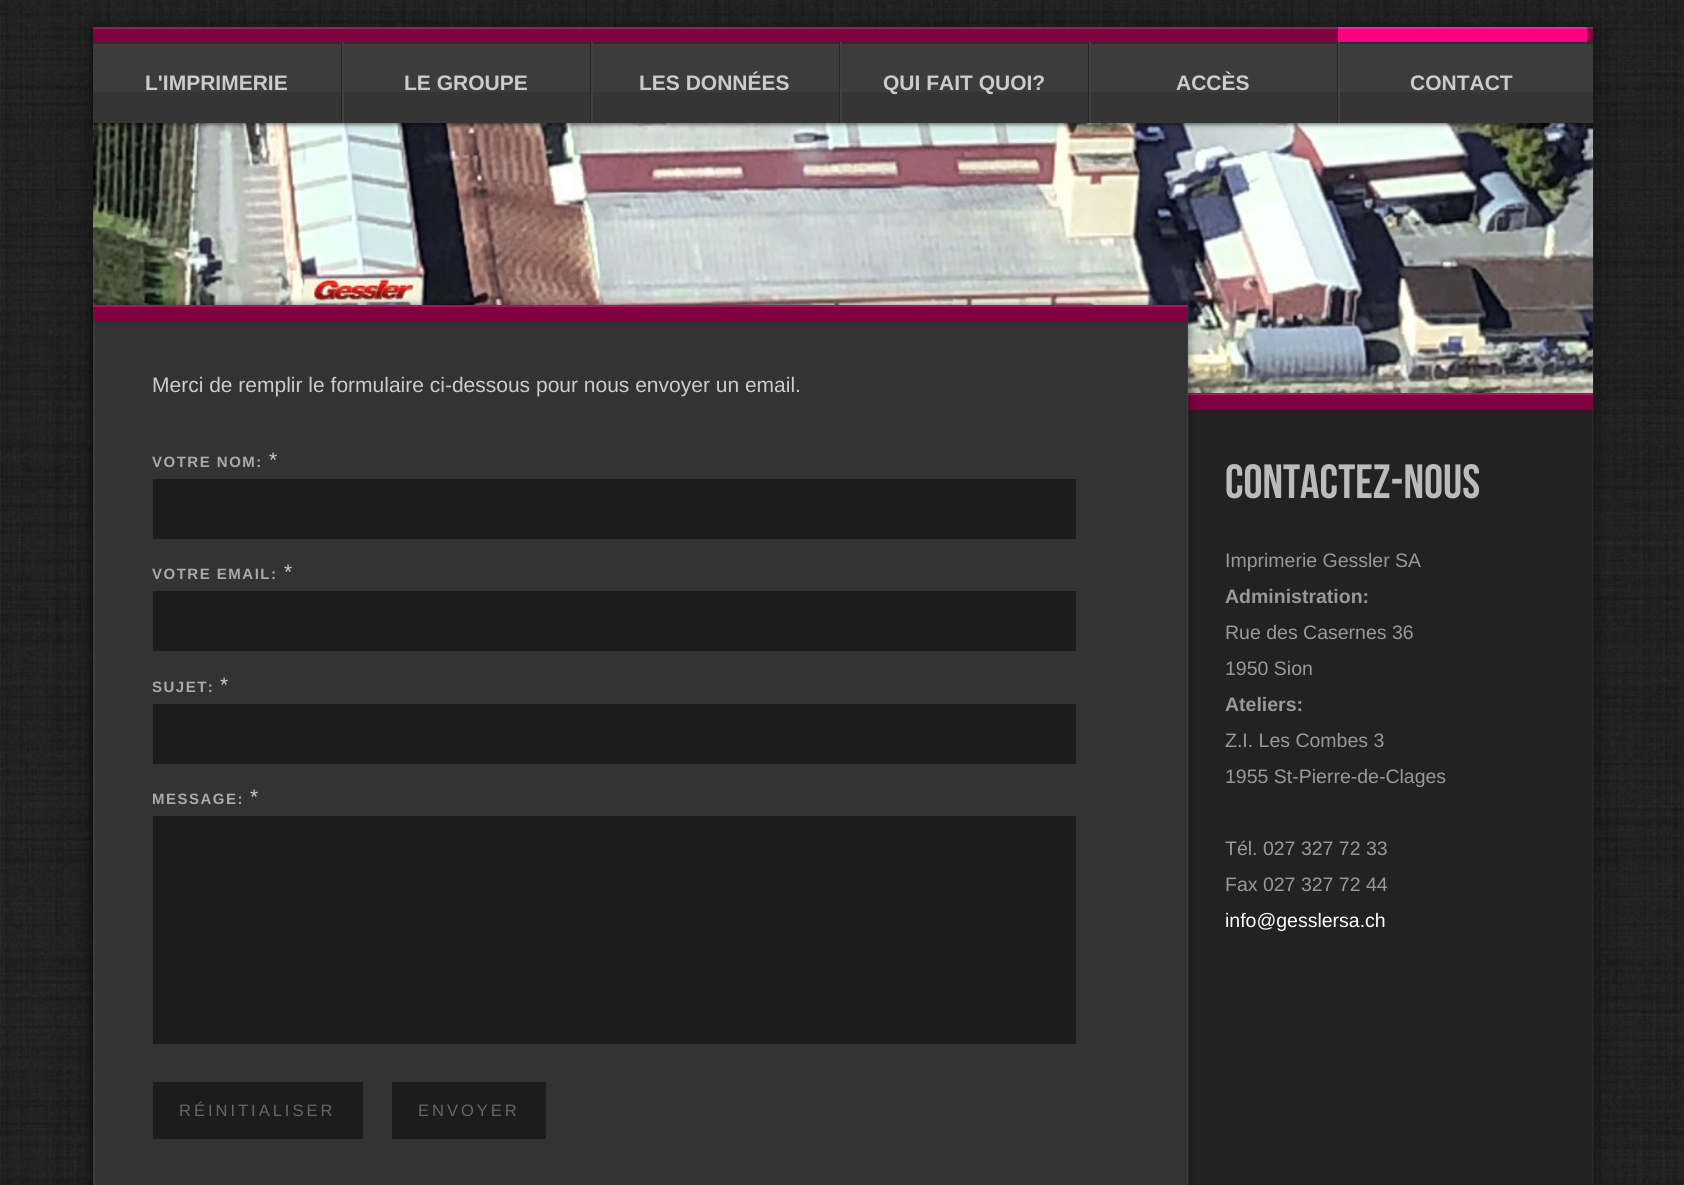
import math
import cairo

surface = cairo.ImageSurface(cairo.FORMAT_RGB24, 1684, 1185)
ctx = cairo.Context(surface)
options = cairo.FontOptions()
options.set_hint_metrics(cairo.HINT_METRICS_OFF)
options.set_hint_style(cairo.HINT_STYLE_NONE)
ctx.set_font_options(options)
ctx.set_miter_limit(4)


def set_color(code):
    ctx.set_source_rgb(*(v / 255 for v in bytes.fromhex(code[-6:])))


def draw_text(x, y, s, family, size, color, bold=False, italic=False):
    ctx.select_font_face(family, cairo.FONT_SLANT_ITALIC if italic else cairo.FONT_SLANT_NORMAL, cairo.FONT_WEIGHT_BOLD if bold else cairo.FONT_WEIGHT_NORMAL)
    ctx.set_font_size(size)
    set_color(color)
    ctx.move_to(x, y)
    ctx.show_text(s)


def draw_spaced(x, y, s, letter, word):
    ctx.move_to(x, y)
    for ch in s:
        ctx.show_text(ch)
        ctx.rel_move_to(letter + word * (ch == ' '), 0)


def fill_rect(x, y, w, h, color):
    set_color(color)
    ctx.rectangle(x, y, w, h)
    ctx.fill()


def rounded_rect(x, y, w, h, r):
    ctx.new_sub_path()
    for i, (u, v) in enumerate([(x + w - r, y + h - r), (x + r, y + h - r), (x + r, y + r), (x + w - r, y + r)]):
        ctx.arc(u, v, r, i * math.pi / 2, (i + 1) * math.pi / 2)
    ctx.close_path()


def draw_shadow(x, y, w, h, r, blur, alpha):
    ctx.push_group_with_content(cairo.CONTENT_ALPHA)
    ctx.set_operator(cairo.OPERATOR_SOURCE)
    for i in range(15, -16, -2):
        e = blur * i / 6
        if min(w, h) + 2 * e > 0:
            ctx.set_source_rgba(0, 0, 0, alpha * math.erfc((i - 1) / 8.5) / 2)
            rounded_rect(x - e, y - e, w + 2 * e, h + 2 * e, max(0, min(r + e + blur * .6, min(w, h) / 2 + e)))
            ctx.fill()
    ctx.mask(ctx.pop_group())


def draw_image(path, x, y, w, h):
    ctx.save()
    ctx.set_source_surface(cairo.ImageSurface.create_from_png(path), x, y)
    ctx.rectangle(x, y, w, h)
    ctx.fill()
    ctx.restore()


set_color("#ffffff")
ctx.paint()
draw_image("assets/img1.png", 0, 0, 1684, 1185)
set_color("#000000")
draw_shadow(93, 30, 1500, 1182, 0, 9, 0.5)
fill_rect(1188, 410, 405, 775, "#222222")
ctx.set_source_rgba(1, 1, 1, 0.04)
ctx.rectangle(1592, 27, 2, 1158)
ctx.fill()
draw_image("assets/img2.png", 93, 123, 1500, 270)
set_color("#000000")
draw_shadow(93, 29, 1500, 96, 0, 2, 0.5)
fill_rect(93, 44, 1500, 48, "#3c3c3c")
fill_rect(93, 92, 1500, 31, "#353535")
fill_rect(93, 27, 1500, 2, "#9c1c5c")
fill_rect(93, 42, 1500, 2, "#2c2c2c")
fill_rect(93, 29, 1500, 13, "#800040")
fill_rect(341, 42, 1, 81, "#262626")
draw_text(145, 90, "L'IMPRIMERIE", "Liberation Sans", 21, "#cccccc", bold=True)
fill_rect(342, 42, 2, 81, "#404040")
fill_rect(590, 42, 1, 81, "#262626")
draw_text(404, 90, "LE GROUPE", "Liberation Sans", 21, "#cccccc", bold=True)
fill_rect(591, 42, 2, 81, "#404040")
fill_rect(839, 42, 1, 81, "#262626")
draw_text(639, 90, "LES DONNÉES", "Liberation Sans", 21, "#cccccc", bold=True)
fill_rect(840, 42, 2, 81, "#404040")
fill_rect(1088, 42, 1, 81, "#262626")
draw_text(883, 90, "QUI FAIT QUOI?", "Liberation Sans", 21, "#cccccc", bold=True)
fill_rect(1089, 42, 2, 81, "#404040")
fill_rect(1337, 42, 1, 81, "#262626")
draw_text(1176, 90, "ACCÈS", "Liberation Sans", 21, "#cccccc", bold=True)
fill_rect(1338, 42, 2, 81, "#444444")
fill_rect(1338, 29, 249, 13, "#ff0080")
fill_rect(1338, 27, 249, 2, "#ff21a1")
draw_text(1410, 90, "CONTACT", "Liberation Sans", 21, "#cccccc", bold=True)
fill_rect(1188, 395, 405, 15, "#800040")
fill_rect(1188, 393, 405, 2, "#9c1c5c")
set_color("#000000")
draw_shadow(93, 306, 1095, 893, 0, 4.5, 0.6)
fill_rect(95, 321, 1093, 864, "#333333")
ctx.set_source_rgba(1, 1, 1, 0.05)
ctx.rectangle(1187, 306, 2, 879)
ctx.fill()
fill_rect(93, 321, 2, 864, "#3d3d3d")
set_color("#000000")
draw_shadow(93, 306, 1095, 17, 0, 1.5, 0.15)
fill_rect(93, 307, 1095, 14, "#800040")
fill_rect(93, 305, 1095, 2, "#9c1c5c")
draw_text(152, 392, "Merci de remplir le formulaire ci-dessous pour nous envoyer un email.", "Liberation Sans", 21, "#cccccc")
ctx.select_font_face("Liberation Sans", cairo.FONT_SLANT_NORMAL, cairo.FONT_WEIGHT_BOLD)
ctx.set_font_size(15)
set_color("#aaaaaa")
draw_spaced(152, 467, "VOTRE NOM:", 1.5, 0)
draw_text(269, 467, "*", "Liberation Sans", 21, "#cccccc")
fill_rect(153, 479, 923, 60, "#1c1c1c")
ctx.select_font_face("Liberation Sans", cairo.FONT_SLANT_NORMAL, cairo.FONT_WEIGHT_BOLD)
ctx.set_font_size(15)
set_color("#aaaaaa")
draw_spaced(152, 579, "VOTRE EMAIL:", 1.5, 0)
draw_text(284, 579, "*", "Liberation Sans", 21, "#cccccc")
fill_rect(153, 591, 923, 60, "#1c1c1c")
ctx.select_font_face("Liberation Sans", cairo.FONT_SLANT_NORMAL, cairo.FONT_WEIGHT_BOLD)
ctx.set_font_size(15)
set_color("#aaaaaa")
draw_spaced(152, 692, "SUJET:", 1.5, 0)
draw_text(220, 692, "*", "Liberation Sans", 21, "#cccccc")
fill_rect(153, 704, 923, 60, "#1c1c1c")
ctx.select_font_face("Liberation Sans", cairo.FONT_SLANT_NORMAL, cairo.FONT_WEIGHT_BOLD)
ctx.set_font_size(15)
set_color("#aaaaaa")
draw_spaced(152, 804, "MESSAGE:", 1.5, 0)
draw_text(250, 804, "*", "Liberation Sans", 21, "#cccccc")
fill_rect(153, 816, 923, 228, "#1c1c1c")
fill_rect(153, 1082, 210, 57, "#1c1c1c")
ctx.set_font_size(16.5)
set_color("#666666")
draw_spaced(179, 1116, "RÉINITIALISER", 3, 0)
fill_rect(392, 1082, 154, 57, "#1c1c1c")
set_color("#666666")
draw_spaced(418, 1116, "ENVOYER", 3, 0)
draw_text(1225, 498, "Contactez-nous", "Bebas Neue", 48, "#bbbbbb")
draw_text(1225, 567, "Imprimerie Gessler SA", "Liberation Sans", 19.5, "#999999")
draw_text(1225, 603, "Administration:", "Liberation Sans", 19.5, "#999999", bold=True)
draw_text(1225, 639, "Rue des Casernes 36", "Liberation Sans", 19.5, "#999999")
draw_text(1225, 675, "1950 Sion", "Liberation Sans", 19.5, "#999999")
draw_text(1225, 711, "Ateliers:", "Liberation Sans", 19.5, "#999999", bold=True)
draw_text(1225, 747, "Z.I. Les Combes 3", "Liberation Sans", 19.5, "#999999")
draw_text(1225, 783, "1955 St-Pierre-de-Clages", "Liberation Sans", 19.5, "#999999")
draw_text(1225, 855, "Tél. 027 327 72 33", "Liberation Sans", 19.5, "#999999")
draw_text(1225, 891, "Fax 027 327 72 44", "Liberation Sans", 19.5, "#999999")
draw_text(1225, 927, "info@gesslersa.ch", "Liberation Sans", 19.5, "#ffffff")
surface.write_to_png("output.png")
